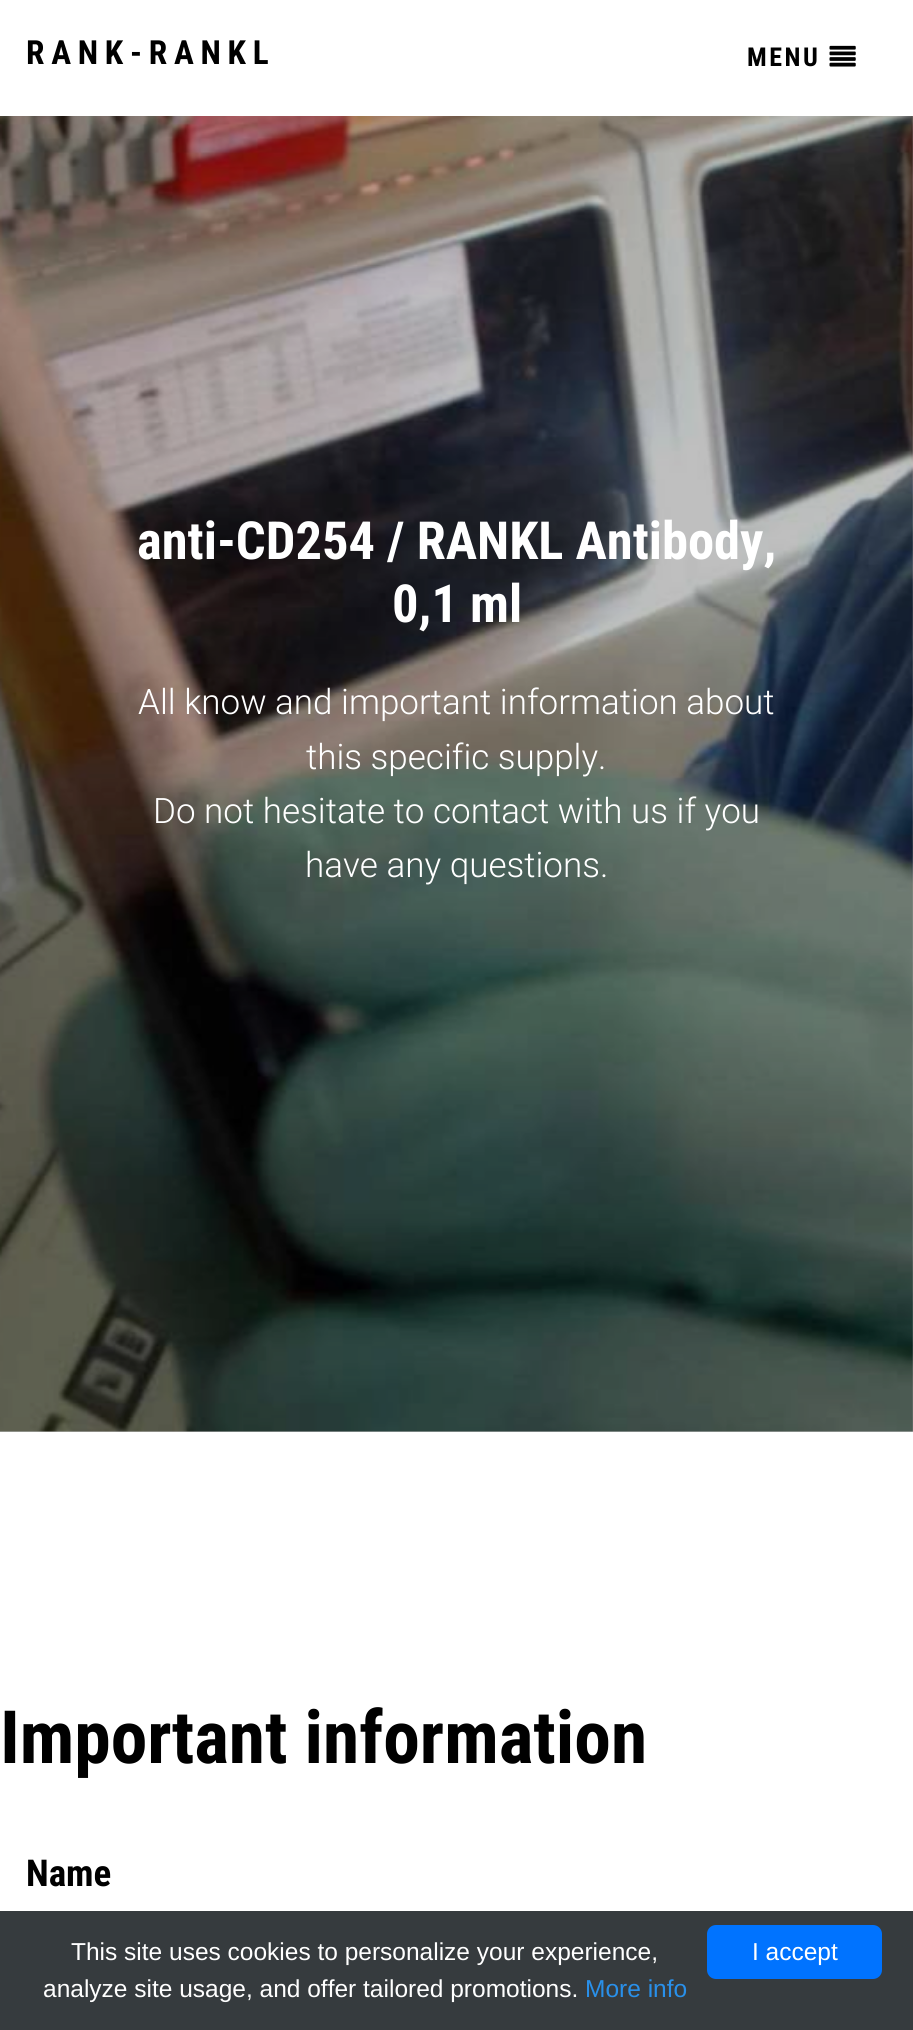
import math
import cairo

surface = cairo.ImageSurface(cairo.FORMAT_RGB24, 913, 2030)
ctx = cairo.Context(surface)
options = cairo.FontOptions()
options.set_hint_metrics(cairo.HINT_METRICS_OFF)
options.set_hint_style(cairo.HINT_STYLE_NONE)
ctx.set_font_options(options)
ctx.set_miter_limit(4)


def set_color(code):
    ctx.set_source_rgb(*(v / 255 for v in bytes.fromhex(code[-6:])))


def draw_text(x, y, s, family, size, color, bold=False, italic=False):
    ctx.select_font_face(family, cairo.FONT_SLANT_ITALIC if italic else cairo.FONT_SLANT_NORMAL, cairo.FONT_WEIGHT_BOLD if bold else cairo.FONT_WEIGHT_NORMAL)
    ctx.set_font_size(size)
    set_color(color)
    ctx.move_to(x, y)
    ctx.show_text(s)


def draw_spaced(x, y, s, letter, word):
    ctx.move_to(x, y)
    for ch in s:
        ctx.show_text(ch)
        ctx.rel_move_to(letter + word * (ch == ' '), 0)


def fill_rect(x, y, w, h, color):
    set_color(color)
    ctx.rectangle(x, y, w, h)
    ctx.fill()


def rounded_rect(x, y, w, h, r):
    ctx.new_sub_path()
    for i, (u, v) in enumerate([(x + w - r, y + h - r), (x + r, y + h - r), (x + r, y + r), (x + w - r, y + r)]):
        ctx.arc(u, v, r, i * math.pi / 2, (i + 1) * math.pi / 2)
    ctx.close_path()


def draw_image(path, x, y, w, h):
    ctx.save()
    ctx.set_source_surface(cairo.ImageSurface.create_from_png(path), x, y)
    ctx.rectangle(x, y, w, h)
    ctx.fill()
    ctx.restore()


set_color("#ffffff")
ctx.paint()
fill_rect(0, 116, 913, 1316, "#bfbfbf")
ctx.select_font_face("Roboto Condensed", cairo.FONT_SLANT_NORMAL, cairo.FONT_WEIGHT_BOLD)
ctx.set_font_size(33.25)
set_color("#000000")
draw_spaced(26, 64, "RANK-RANKL", 6.75, 0)
ctx.set_font_size(26)
draw_spaced(747, 66, "MENU", 2.5, 0)
draw_image("assets/img1.png", 829, 45, 27, 22)
draw_image("assets/img2.png", 0, 116, 913, 1316)
draw_text(137, 559, "anti-CD254 / RANKL Antibody,", "Roboto Condensed", 52.5, "#ffffff", bold=True)
draw_text(392, 622, "0,1 ml", "Roboto Condensed", 52.5, "#ffffff", bold=True)
draw_text(138, 714, "All know and important information about", "Roboto Light", 35, "#ffffff")
draw_text(306, 769, "this specific supply.", "Roboto Light", 35, "#ffffff")
draw_text(153, 823, "Do not hesitate to contact with us if you", "Roboto Light", 35, "#ffffff")
draw_text(305, 877, "have any questions.", "Roboto Light", 35, "#ffffff")
draw_text(0, 1763, "Important information", "Roboto Condensed", 73.5, "#000000", bold=True)
draw_text(26, 1886, "Name", "Roboto Condensed", 37, "#000000", bold=True)
fill_rect(0, 1911, 913, 119, "#363b3e")
draw_text(71, 1960, "This site uses cookies to personalize your experience,", "Liberation Sans", 24.5, "#ffffff")
draw_text(43, 1997, "analyze site usage, and offer tailored promotions.", "Liberation Sans", 24.5, "#ffffff")
draw_text(585, 1997, "More info", "Liberation Sans", 24.5, "#2990ea")
set_color("#0073ff")
rounded_rect(707, 1925, 175, 54, 9)
ctx.fill()
draw_text(752, 1960, "I accept", "Liberation Sans", 24.5, "#ffffff")
surface.write_to_png("output.png")
